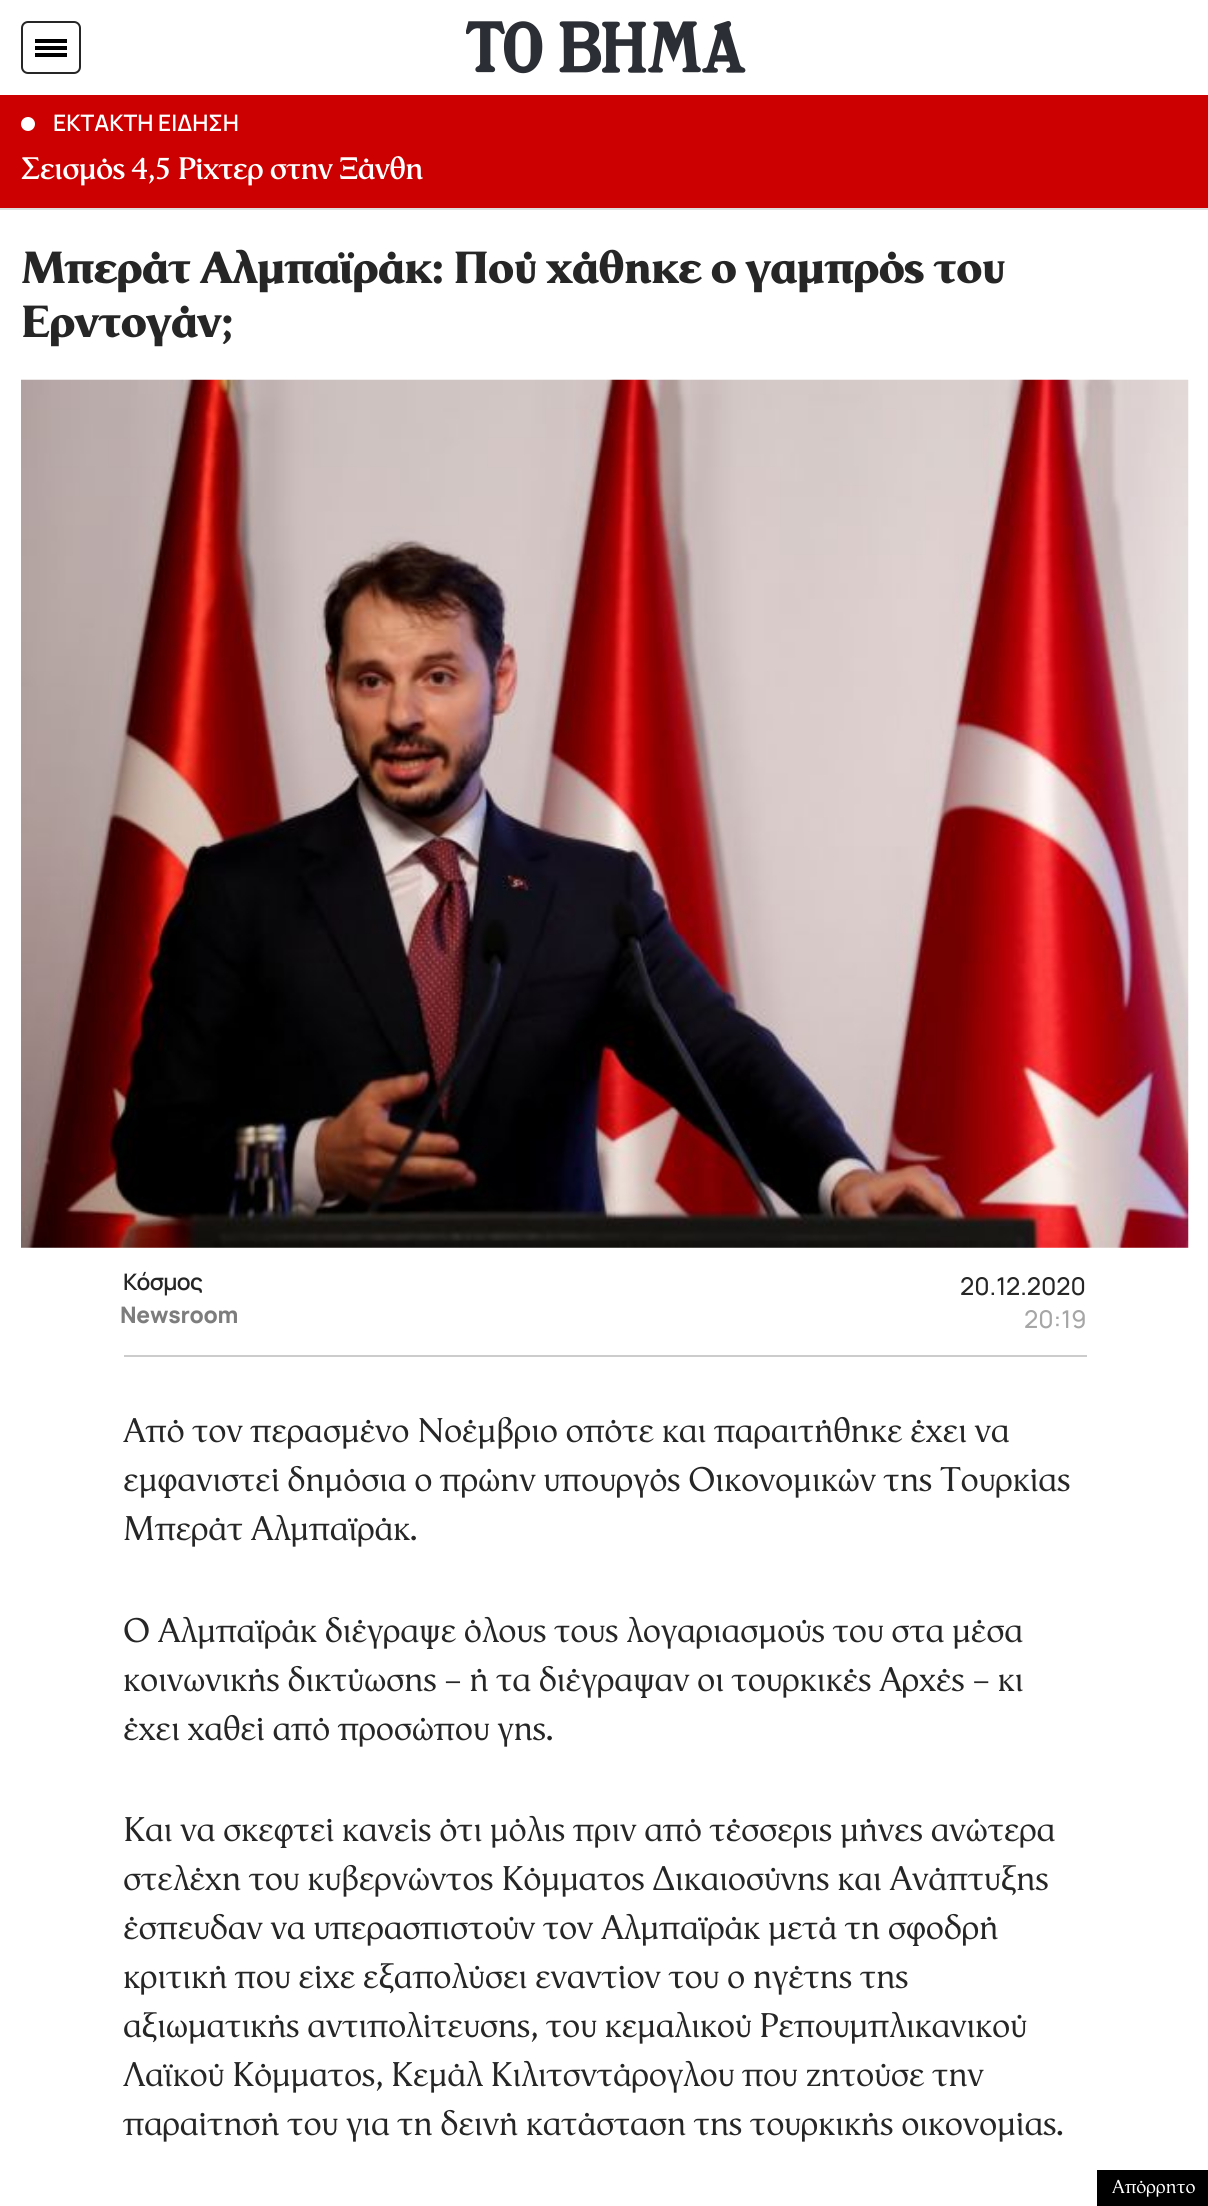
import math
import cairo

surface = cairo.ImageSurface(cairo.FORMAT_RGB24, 1208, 2206)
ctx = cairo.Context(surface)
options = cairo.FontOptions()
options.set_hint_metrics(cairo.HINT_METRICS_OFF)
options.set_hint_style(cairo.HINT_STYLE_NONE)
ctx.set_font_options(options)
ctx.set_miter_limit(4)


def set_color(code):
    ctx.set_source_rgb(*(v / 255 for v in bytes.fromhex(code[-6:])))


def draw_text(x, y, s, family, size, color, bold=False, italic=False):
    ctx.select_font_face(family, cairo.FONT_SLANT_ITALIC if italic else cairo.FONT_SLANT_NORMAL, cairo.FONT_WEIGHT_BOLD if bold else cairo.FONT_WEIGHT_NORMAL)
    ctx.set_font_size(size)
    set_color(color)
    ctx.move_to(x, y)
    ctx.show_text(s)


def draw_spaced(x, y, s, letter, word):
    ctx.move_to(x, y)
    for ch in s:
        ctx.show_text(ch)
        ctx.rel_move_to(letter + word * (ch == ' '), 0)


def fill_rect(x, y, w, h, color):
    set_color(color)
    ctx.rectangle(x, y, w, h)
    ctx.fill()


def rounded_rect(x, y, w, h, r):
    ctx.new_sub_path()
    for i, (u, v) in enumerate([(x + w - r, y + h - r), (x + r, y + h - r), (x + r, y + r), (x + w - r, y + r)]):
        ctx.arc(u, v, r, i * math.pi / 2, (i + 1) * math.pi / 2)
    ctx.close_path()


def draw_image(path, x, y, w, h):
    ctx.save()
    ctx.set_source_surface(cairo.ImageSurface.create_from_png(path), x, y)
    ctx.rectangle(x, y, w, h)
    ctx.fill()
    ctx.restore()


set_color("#ffffff")
ctx.paint()
fill_rect(0, 208, 1208, 2, "#dddddd")
rounded_rect(22, 22, 58, 51, 6)
set_color("#262626")
ctx.stroke()
fill_rect(35, 39, 32, 4, "#000000")
fill_rect(35, 46, 32, 4, "#000000")
fill_rect(35, 53, 32, 4, "#000000")
draw_image("assets/img1.png", 466, 21, 280, 53)
fill_rect(0, 95, 1208, 113, "#cc0000")
set_color("#ffffff")
ctx.arc(28, 124, 7, 0, 2 * math.pi)
ctx.fill()
draw_text(53, 131, "ΕΚΤΑΚΤΗ ΕΙΔΗΣΗ", "Manrope SemiBold", 22.75, "#ffffff")
ctx.select_font_face("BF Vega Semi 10", cairo.FONT_SLANT_NORMAL, cairo.FONT_WEIGHT_BOLD)
ctx.set_font_size(31.5)
draw_spaced(21, 179, "Σεισμός 4,5 Ρίχτερ στην Ξάνθη", -0.7, 0)
ctx.select_font_face("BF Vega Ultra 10")
ctx.set_font_size(45.5)
set_color("#262626")
draw_spaced(21, 283, "Μπεράτ Αλμπαϊράκ: Πού χάθηκε ο γαμπρός του", -1.1, 0)
draw_spaced(21, 337, "Ερντογάν;", -1.1, 0)
draw_image("assets/img2.png", 21, 379, 1168, 869)
fill_rect(124, 1355, 963, 2, "#cccccc")
ctx.select_font_face("Manrope SemiBold")
ctx.set_font_size(22.75)
set_color("#262626")
draw_spaced(123, 1290, "Κόσμος", -0.7, 0)
ctx.select_font_face("Manrope ExtraBold")
set_color("#7d7d7d")
draw_spaced(120, 1323, "Newsroom", -0.25, 0)
draw_text(960, 1295, "20.12.2020", "Manrope Medium", 24.5, "#262626")
draw_text(1024, 1328, "20:19", "Manrope Medium", 24.5, "#a6a6a6")
ctx.select_font_face("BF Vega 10")
ctx.set_font_size(35)
set_color("#262626")
draw_spaced(123, 1442, "Από τον περασμένο Νοέμβριο οπότε και παραιτήθηκε έχει να", -0.35, 0)
draw_spaced(123, 1491, "εμφανιστεί δημόσια ο πρώην υπουργός Οικονομικών της Τουρκίας", -0.35, 0)
draw_spaced(123, 1540, "Μπεράτ Αλμπαϊράκ.", -0.35, 0)
draw_spaced(123, 1642, "Ο Αλμπαϊράκ διέγραψε όλους τους λογαριασμούς του στα μέσα", -0.35, 0)
draw_spaced(123, 1691, "κοινωνικής δικτύωσης – ή τα διέγραψαν οι τουρκικές Αρχές – κι", -0.35, 0)
draw_spaced(123, 1740, "έχει χαθεί από προσώπου γης.", -0.35, 0)
draw_spaced(123, 1841, "Και να σκεφτεί κανείς ότι μόλις πριν από τέσσερις μήνες ανώτερα", -0.35, 0)
draw_spaced(123, 1890, "στελέχη του κυβερνώντος Κόμματος Δικαιοσύνης και Ανάπτυξης", -0.35, 0)
draw_spaced(123, 1939, "έσπευδαν να υπερασπιστούν τον Αλμπαϊράκ μετά τη σφοδρή", -0.35, 0)
draw_spaced(123, 1988, "κριτική που είχε εξαπολύσει εναντίον του ο ηγέτης της", -0.35, 0)
draw_spaced(123, 2037, "αξιωματικής αντιπολίτευσης, του κεμαλικού Ρεπουμπλικανικού", -0.35, 0)
draw_spaced(123, 2086, "Λαϊκού Κόμματος, Κεμάλ Κιλιτσντάρογλου που ζητούσε την", -0.35, 0)
draw_spaced(123, 2135, "παραίτησή του για τη δεινή κατάσταση της τουρκικής οικονομίας.", -0.35, 0)
fill_rect(1097, 2170, 111, 36, "#000000")
draw_text(1112, 2193, "Απόρρητο", "BF Vega 10", 19.25, "#ffffff")
surface.write_to_png("output.png")
